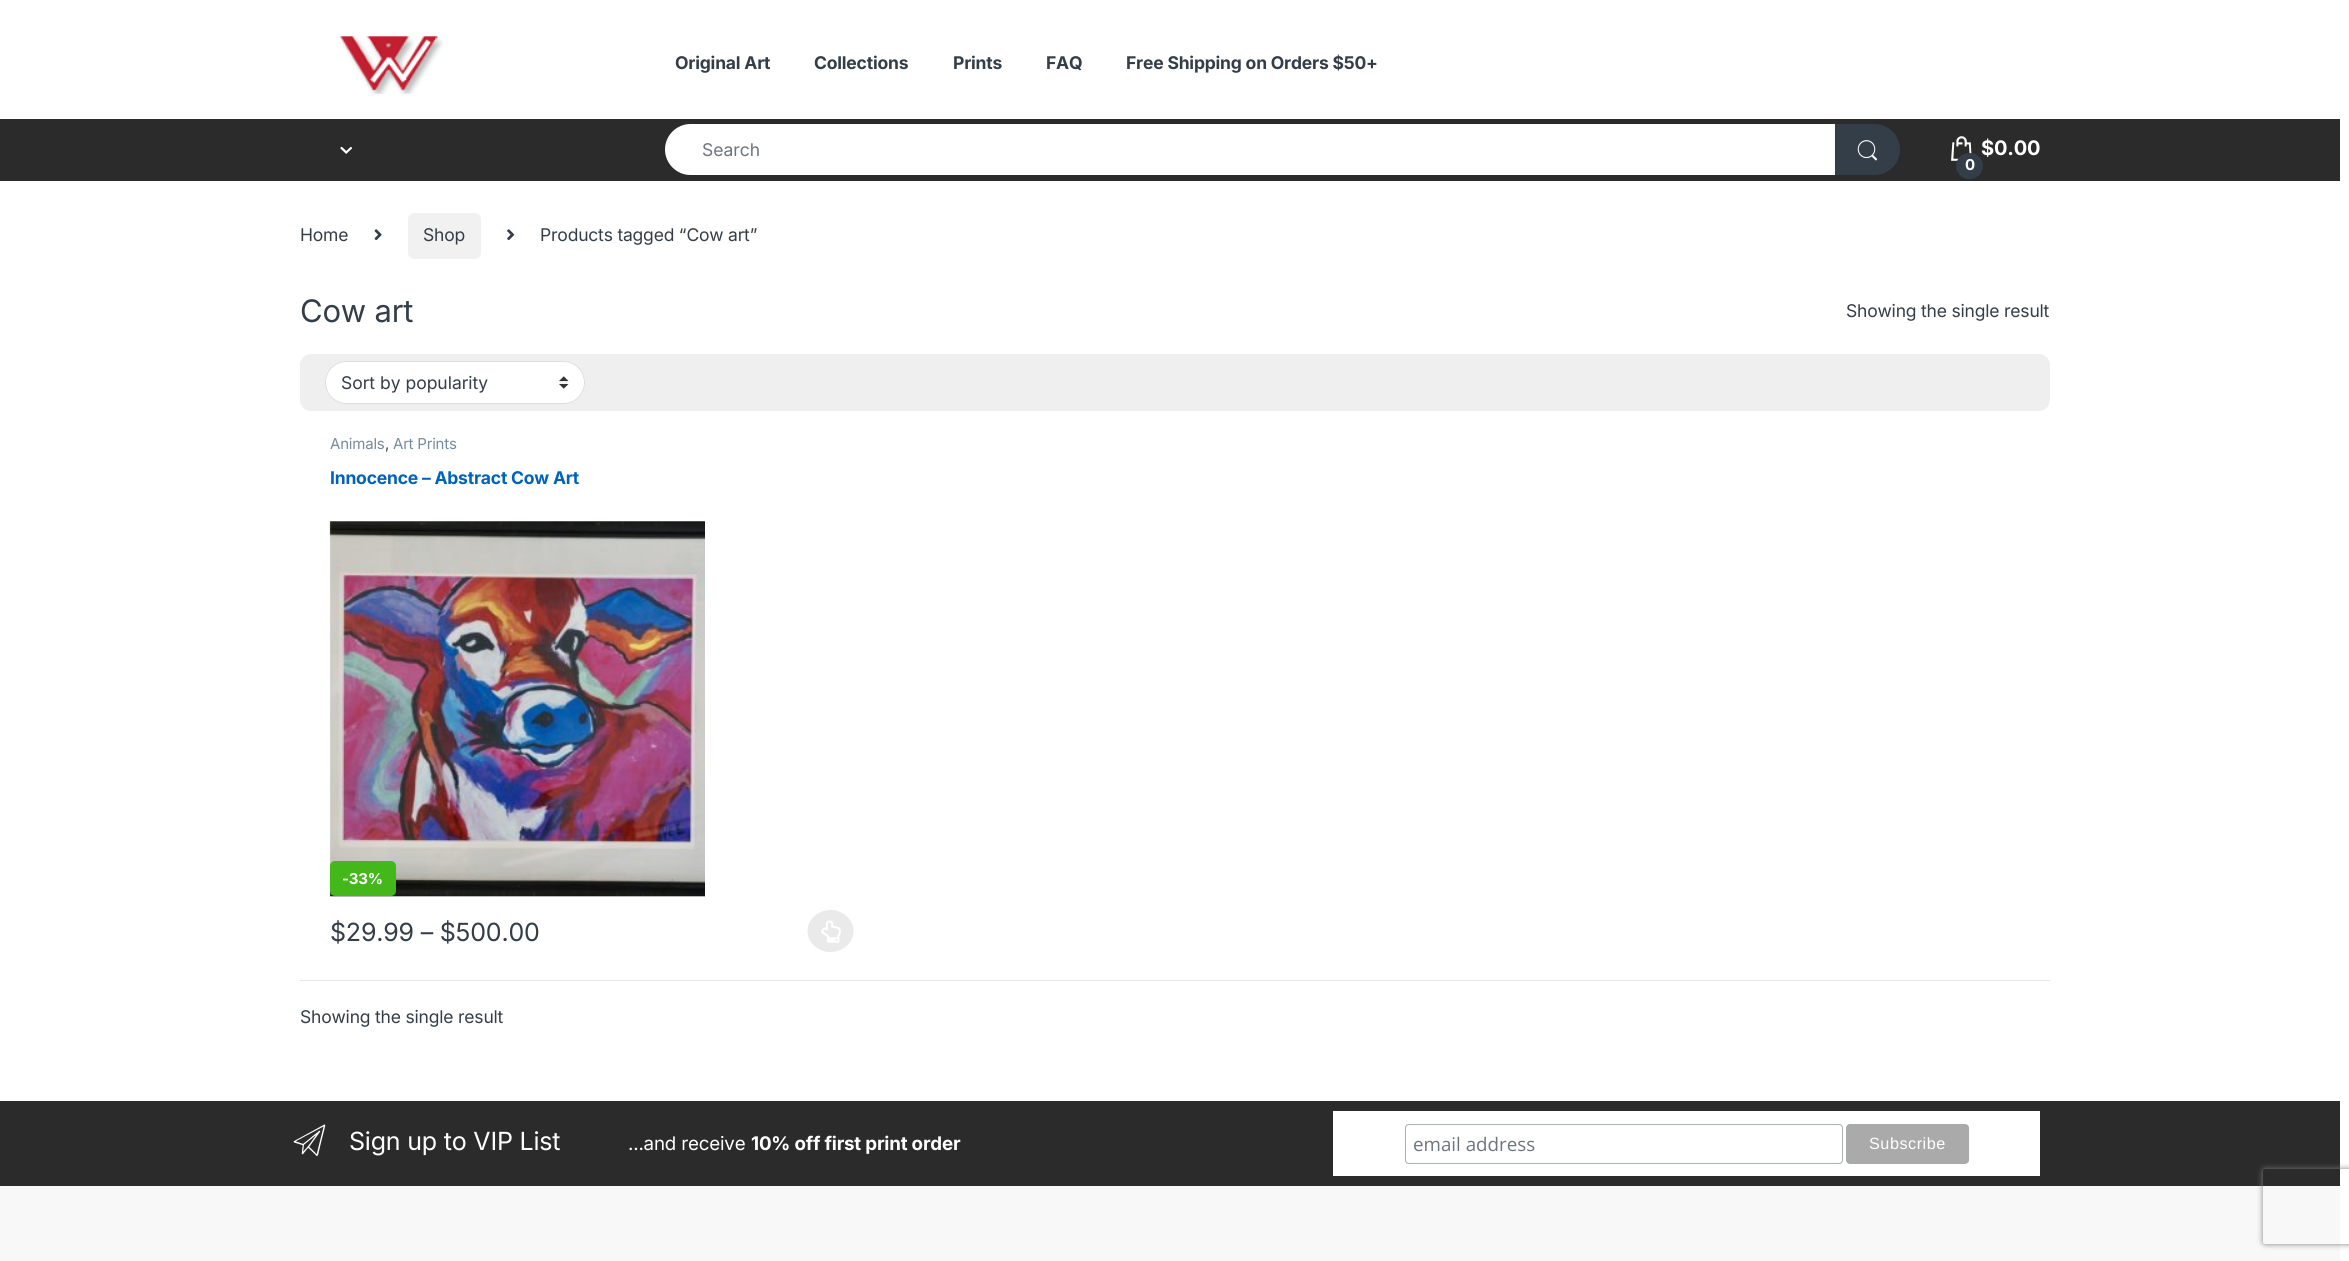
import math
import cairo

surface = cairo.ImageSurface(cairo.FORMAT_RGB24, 2349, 1261)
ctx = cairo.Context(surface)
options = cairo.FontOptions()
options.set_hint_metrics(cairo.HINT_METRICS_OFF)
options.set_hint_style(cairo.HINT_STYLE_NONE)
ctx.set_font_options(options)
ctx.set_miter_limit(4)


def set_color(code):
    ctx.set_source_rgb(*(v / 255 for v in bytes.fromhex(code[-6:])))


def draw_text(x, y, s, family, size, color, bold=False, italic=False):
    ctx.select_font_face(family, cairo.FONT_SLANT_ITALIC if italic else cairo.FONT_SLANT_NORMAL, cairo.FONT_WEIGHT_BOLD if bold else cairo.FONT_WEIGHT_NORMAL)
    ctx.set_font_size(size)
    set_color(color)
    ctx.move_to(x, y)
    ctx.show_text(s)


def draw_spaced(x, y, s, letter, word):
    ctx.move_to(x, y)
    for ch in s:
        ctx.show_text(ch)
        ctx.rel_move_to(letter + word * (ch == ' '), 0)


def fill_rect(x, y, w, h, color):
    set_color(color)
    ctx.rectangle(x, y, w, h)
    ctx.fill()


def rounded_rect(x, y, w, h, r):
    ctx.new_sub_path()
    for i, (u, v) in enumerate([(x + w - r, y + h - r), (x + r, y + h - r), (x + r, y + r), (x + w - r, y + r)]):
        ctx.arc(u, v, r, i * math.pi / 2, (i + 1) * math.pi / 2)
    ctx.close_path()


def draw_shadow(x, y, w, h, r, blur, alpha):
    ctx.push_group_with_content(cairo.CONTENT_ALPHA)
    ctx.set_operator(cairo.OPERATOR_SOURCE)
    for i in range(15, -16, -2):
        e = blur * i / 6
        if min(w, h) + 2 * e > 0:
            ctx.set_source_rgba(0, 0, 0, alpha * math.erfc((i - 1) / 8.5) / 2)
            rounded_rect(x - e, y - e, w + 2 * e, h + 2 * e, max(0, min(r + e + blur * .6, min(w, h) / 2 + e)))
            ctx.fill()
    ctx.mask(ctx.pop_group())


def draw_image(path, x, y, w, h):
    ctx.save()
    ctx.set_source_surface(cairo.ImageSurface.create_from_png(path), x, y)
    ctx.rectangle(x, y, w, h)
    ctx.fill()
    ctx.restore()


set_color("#ffffff")
ctx.paint()
draw_image("assets/img1.png", 339, 36, 105, 58)
ctx.select_font_face("Inter", cairo.FONT_SLANT_NORMAL, cairo.FONT_WEIGHT_BOLD)
ctx.set_font_size(17.5)
set_color("#333e48")
draw_spaced(675, 69, "Original Art", -0.2, 0)
draw_spaced(814, 69, "Collections", -0.2, 0)
draw_spaced(953, 69, "Prints", -0.2, 0)
draw_spaced(1046, 69, "FAQ", -0.2, 0)
draw_spaced(1126, 69, "Free Shipping on Orders $50+", -0.2, 0)
fill_rect(0, 119, 2340, 62, "#2b2b2b")
draw_image("assets/img2.png", 340, 146, 13, 8)
set_color("#ffffff")
ctx.new_path()
ctx.move_to(690.5, 124)
ctx.line_to(1836, 124)
ctx.line_to(1836, 175)
ctx.line_to(690.5, 175)
ctx.curve_to(676.5, 175, 665, 163.5, 665, 149.5)
ctx.curve_to(665, 135.5, 676.5, 124, 690.5, 124)
ctx.close_path()
ctx.fill()
draw_text(702, 156, "Search", "Inter", 17.5, "#6c757d")
set_color("#333e48")
ctx.new_path()
ctx.move_to(1835, 124)
ctx.line_to(1874.5, 124)
ctx.curve_to(1888.5, 124, 1900, 135.5, 1900, 149.5)
ctx.curve_to(1900, 163.5, 1888.5, 175, 1874.5, 175)
ctx.line_to(1835, 175)
ctx.close_path()
ctx.fill()
draw_image("assets/img3.png", 1857, 140, 21, 21)
draw_image("assets/img4.png", 1951, 136, 21, 25)
ctx.select_font_face("Inter", cairo.FONT_SLANT_NORMAL, cairo.FONT_WEIGHT_BOLD)
ctx.set_font_size(20)
set_color("#ffffff")
draw_spaced(1981, 155, "$0.00", -0.2, 0)
set_color("#333e48")
rounded_rect(1956, 153, 27, 26, 13)
ctx.fill()
ctx.set_font_size(15)
set_color("#ffffff")
draw_spaced(1965, 170, "0", -0.2, 0)
ctx.select_font_face("Inter")
ctx.set_font_size(17.5)
set_color("#333e48")
draw_spaced(300, 241, "Home", -0.2, 0)
draw_image("assets/img5.png", 374, 229, 8, 12)
set_color("#f1f1f1")
rounded_rect(408, 213, 73, 46, 6)
ctx.fill()
set_color("#333e48")
draw_spaced(423, 241, "Shop", -0.2, 0)
draw_image("assets/img6.png", 507, 229, 8, 12)
draw_spaced(540, 241, "Products tagged “Cow art”", -0.2, 0)
ctx.set_font_size(31)
draw_spaced(300, 322, "Cow art", -0.2, 0)
ctx.set_font_size(17.5)
draw_spaced(1846, 317, "Showing the single result", -0.2, 0)
set_color("#efefef")
rounded_rect(300, 354, 1750, 57, 11)
ctx.fill()
set_color("#ffffff")
rounded_rect(325, 361, 260, 43, 21.5)
ctx.fill()
draw_image("assets/img7.png", 558, 376, 11, 13)
rounded_rect(325.5, 361.5, 259, 42, 21)
set_color("#dddddd")
ctx.set_line_width(1)
ctx.stroke()
draw_text(341, 389, "Sort by popularity", "Inter", 17.5, "#333e48")
ctx.set_font_size(15)
set_color("#768b9e")
draw_spaced(330, 449, "Animals", -0.2, 0)
set_color("#333e48")
draw_spaced(385, 449, ",", -0.2, 0)
set_color("#768b9e")
draw_spaced(393, 449, "Art Prints", -0.2, 0)
ctx.select_font_face("Inter", cairo.FONT_SLANT_NORMAL, cairo.FONT_WEIGHT_BOLD)
ctx.set_font_size(17.5)
set_color("#0062bd")
draw_spaced(330, 484, "Innocence – Abstract Cow Art", -0.2, 0)
draw_image("assets/img8.png", 329, 521, 376, 376)
set_color("#44b81b")
rounded_rect(330, 861, 66, 35, 5)
ctx.fill()
ctx.set_font_size(15)
set_color("#ffffff")
draw_spaced(342, 884, "-33%", -0.2, 0)
ctx.select_font_face("Inter")
ctx.set_font_size(25)
set_color("#333e48")
draw_spaced(330, 941, "$29.99 – $500.00", -0.2, 0)
set_color("#eaeaea")
ctx.new_path()
ctx.move_to(830.5, 910)
ctx.curve_to(843, 910, 853.5, 919.5, 853.5, 931)
ctx.curve_to(853.5, 942.5, 843, 952, 830.5, 952)
ctx.curve_to(818, 952, 807.5, 942.5, 807.5, 931)
ctx.curve_to(807.5, 919.5, 818, 910, 830.5, 910)
ctx.close_path()
ctx.fill()
draw_image("assets/img9.png", 821, 920, 20, 23)
fill_rect(300, 980, 1750, 1, "#e7e7e7")
ctx.set_font_size(17.5)
set_color("#333e48")
draw_spaced(300, 1023, "Showing the single result", -0.2, 0)
fill_rect(0, 1101, 2340, 85, "#2b2b2b")
draw_image("assets/img10.png", 293, 1124, 33, 33)
ctx.set_font_size(25)
set_color("#ffffff")
draw_spaced(349, 1150, "Sign up to VIP List", -0.2, 0)
ctx.set_font_size(18.75)
draw_spaced(628, 1150, "...and receive", -0.2, 0)
ctx.select_font_face("Inter", cairo.FONT_SLANT_NORMAL, cairo.FONT_WEIGHT_BOLD)
draw_spaced(751, 1150, "10% off first print order", -0.2, 0)
fill_rect(1333, 1111, 707, 65, "#ffffff")
rounded_rect(1405.5, 1124.5, 437, 39, 3.5)
set_color("#abb0b2")
ctx.stroke()
draw_text(1413, 1151, "email address", "Open Sans", 18.75, "#6c757d")
set_color("#aaaaaa")
rounded_rect(1846, 1124, 123, 40, 4)
ctx.fill()
ctx.select_font_face("Liberation Sans")
ctx.set_font_size(16.25)
set_color("#ffffff")
draw_spaced(1869, 1149, "Subscribe", 0.5, 0)
fill_rect(0, 1186, 2340, 75, "#f8f8f8")
ctx.save()
ctx.set_fill_rule(cairo.FILL_RULE_EVEN_ODD)
ctx.new_path()
ctx.move_to(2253, 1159)
ctx.line_to(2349, 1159)
ctx.line_to(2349, 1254)
ctx.line_to(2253, 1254)
ctx.close_path()
ctx.move_to(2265.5, 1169)
ctx.line_to(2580.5, 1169)
ctx.curve_to(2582, 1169, 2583, 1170, 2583, 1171.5)
ctx.line_to(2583, 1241.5)
ctx.curve_to(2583, 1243, 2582, 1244, 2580.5, 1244)
ctx.line_to(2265.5, 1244)
ctx.curve_to(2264, 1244, 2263, 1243, 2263, 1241.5)
ctx.line_to(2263, 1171.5)
ctx.curve_to(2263, 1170, 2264, 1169, 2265.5, 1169)
ctx.close_path()
ctx.clip()
set_color("#808080")
draw_shadow(2263, 1169, 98, 75, 2.5, 3, 1)
ctx.restore()
surface.write_to_png("output.png")
